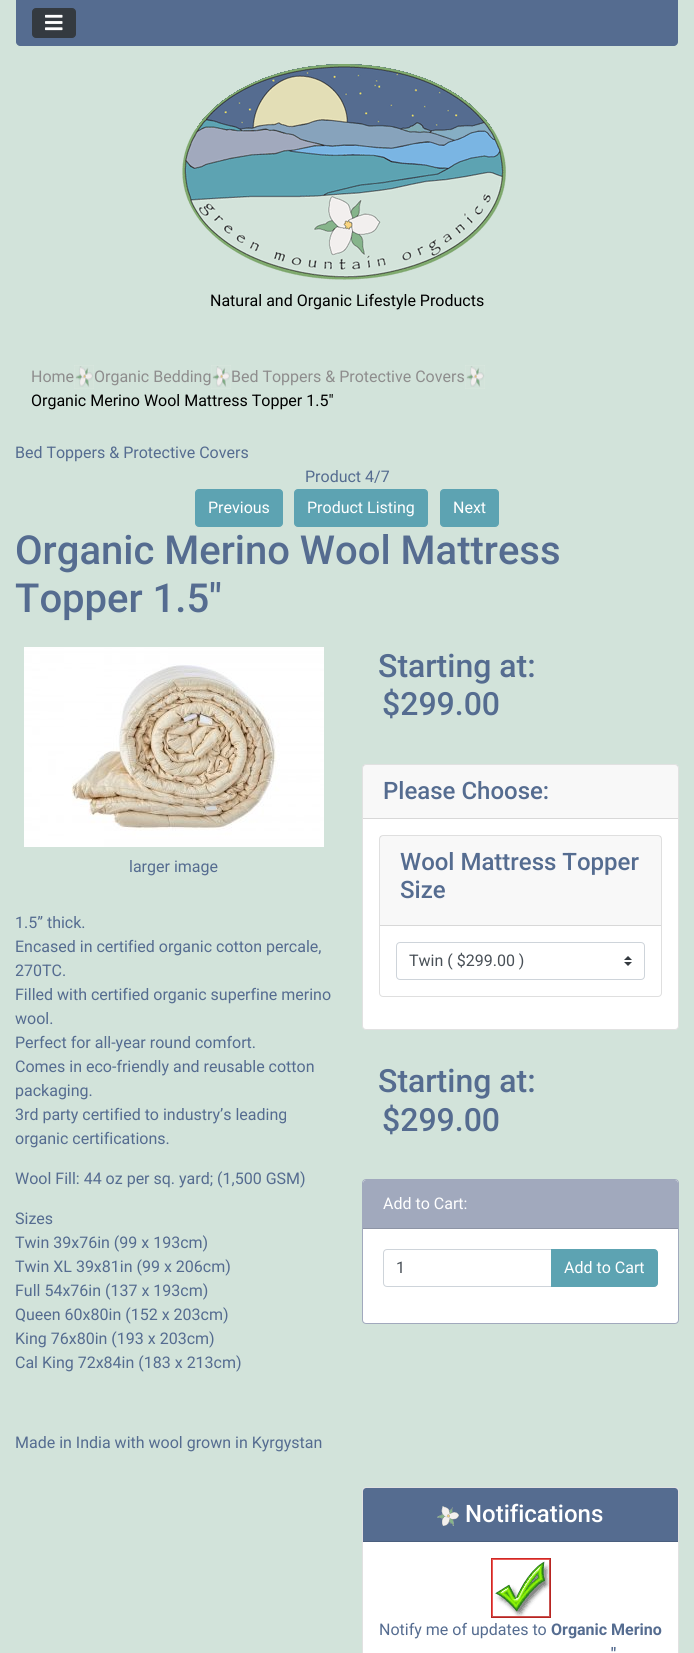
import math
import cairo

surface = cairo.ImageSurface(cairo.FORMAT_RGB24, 694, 1653)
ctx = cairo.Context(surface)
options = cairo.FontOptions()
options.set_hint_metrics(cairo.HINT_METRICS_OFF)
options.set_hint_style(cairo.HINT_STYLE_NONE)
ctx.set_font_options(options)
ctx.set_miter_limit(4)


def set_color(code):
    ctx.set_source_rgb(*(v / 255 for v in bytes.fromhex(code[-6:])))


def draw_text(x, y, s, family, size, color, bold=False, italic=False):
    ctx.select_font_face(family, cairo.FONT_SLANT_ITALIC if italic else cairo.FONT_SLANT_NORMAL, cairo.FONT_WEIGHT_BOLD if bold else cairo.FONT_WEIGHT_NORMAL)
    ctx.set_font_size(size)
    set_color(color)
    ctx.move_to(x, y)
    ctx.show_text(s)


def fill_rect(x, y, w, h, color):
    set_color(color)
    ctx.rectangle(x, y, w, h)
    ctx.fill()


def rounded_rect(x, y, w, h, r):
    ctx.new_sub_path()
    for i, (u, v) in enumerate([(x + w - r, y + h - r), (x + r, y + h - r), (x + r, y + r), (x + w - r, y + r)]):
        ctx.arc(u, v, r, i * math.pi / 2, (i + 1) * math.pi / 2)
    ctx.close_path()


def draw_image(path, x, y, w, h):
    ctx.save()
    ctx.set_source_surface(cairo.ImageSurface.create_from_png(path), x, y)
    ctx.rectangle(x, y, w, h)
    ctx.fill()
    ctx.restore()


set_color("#d2e3da")
ctx.paint()
set_color("#556c90")
ctx.new_path()
ctx.move_to(16, 0)
ctx.line_to(678, 0)
ctx.line_to(678, 42)
ctx.curve_to(678, 44, 676, 46, 674, 46)
ctx.line_to(20, 46)
ctx.curve_to(18, 46, 16, 44, 16, 42)
ctx.close_path()
ctx.fill()
set_color("#343a40")
rounded_rect(32.5, 8.5, 43, 29, 3.5)
ctx.fill_preserve()
ctx.set_line_width(1)
ctx.stroke()
draw_image("assets/img1.png", 45, 14, 18, 17)
draw_image("assets/img2.png", 182, 64, 324, 216)
draw_text(210, 306, "Natural and Organic Lifestyle Products", "Roboto", 16, "#000000")
draw_text(31, 382, "Home", "Roboto", 16, "#8e8d8d")
draw_image("assets/img3.png", 74, 365, 20, 24)
draw_text(94, 382, "Organic Bedding", "Roboto", 16, "#8e8d8d")
draw_image("assets/img3.png", 211, 365, 20, 24)
draw_text(231, 382, "Bed Toppers & Protective Covers", "Roboto", 16, "#8e8d8d")
draw_image("assets/img3.png", 465, 365, 20, 24)
draw_text(31, 406, "Organic Merino Wool Mattress Topper 1.5\"", "Roboto", 16, "#000000")
draw_text(15, 458, "Bed Toppers & Protective Covers", "Roboto", 16, "#556c90")
draw_text(305, 482, "Product 4/7", "Roboto", 16, "#556c90")
set_color("#5da3b2")
rounded_rect(195.5, 489.5, 87, 37, 3.5)
ctx.fill_preserve()
ctx.stroke()
draw_text(208, 513, "Previous", "Roboto", 16, "#ffffff")
set_color("#5da3b2")
rounded_rect(294.5, 489.5, 133, 37, 3.5)
ctx.fill_preserve()
ctx.stroke()
draw_text(307, 513, "Product Listing", "Roboto", 16, "#ffffff")
set_color("#5da3b2")
rounded_rect(440.5, 489.5, 58, 37, 3.5)
ctx.fill_preserve()
ctx.stroke()
draw_text(453, 513, "Next", "Roboto", 16, "#ffffff")
draw_text(15, 564, "Organic Merino Wool Mattress", "Roboto Medium", 40, "#556c90")
draw_text(15, 612, "Topper 1.5\"", "Roboto Medium", 40, "#556c90")
draw_image("assets/img4.png", 24, 647, 300, 200)
draw_text(129, 872, "larger image", "Roboto", 16, "#556c90")
draw_text(15, 928, "1.5” thick.", "Roboto", 16, "#556c90")
draw_text(15, 952, "Encased in certified organic cotton percale,", "Roboto", 16, "#556c90")
draw_text(15, 976, "270TC.", "Roboto", 16, "#556c90")
draw_text(15, 1000, "Filled with certified organic superfine merino", "Roboto", 16, "#556c90")
draw_text(15, 1024, "wool.", "Roboto", 16, "#556c90")
draw_text(15, 1048, "Perfect for all-year round comfort.", "Roboto", 16, "#556c90")
draw_text(15, 1072, "Comes in eco-friendly and reusable cotton", "Roboto", 16, "#556c90")
draw_text(15, 1096, "packaging.", "Roboto", 16, "#556c90")
draw_text(15, 1120, "3rd party certified to industry’s leading", "Roboto", 16, "#556c90")
draw_text(15, 1144, "organic certifications.", "Roboto", 16, "#556c90")
draw_text(15, 1184, "Wool Fill: 44 oz per sq. yard; (1,500 GSM)", "Roboto", 16, "#556c90")
draw_text(15, 1224, "Sizes", "Roboto", 16, "#556c90")
draw_text(15, 1248, "Twin 39x76in (99 x 193cm)", "Roboto", 16, "#556c90")
draw_text(15, 1272, "Twin XL 39x81in (99 x 206cm)", "Roboto", 16, "#556c90")
draw_text(15, 1296, "Full 54x76in (137 x 193cm)", "Roboto", 16, "#556c90")
draw_text(15, 1320, "Queen 60x80in (152 x 203cm)", "Roboto", 16, "#556c90")
draw_text(15, 1344, "King 76x80in (193 x 203cm)", "Roboto", 16, "#556c90")
draw_text(15, 1368, "Cal King 72x84in (183 x 213cm)", "Roboto", 16, "#556c90")
draw_text(15, 1448, "Made in India with wool grown in Kyrgystan", "Roboto", 16, "#556c90")
draw_text(378, 677, "Starting at:", "Roboto Medium", 32, "#556c90")
draw_text(382, 715, "$299.00", "Roboto Medium", 32, "#556c90")
set_color("#ffffff")
rounded_rect(362, 764, 317, 266, 4)
ctx.fill()
rounded_rect(362.5, 764.5, 316, 265, 3.5)
ctx.set_source_rgba(0, 0, 0, 0.12)
ctx.stroke()
ctx.set_source_rgba(0, 0, 0, 0.03)
ctx.rectangle(363, 765, 315, 53)
ctx.fill()
fill_rect(363, 818, 315, 1, "#d8d8d8")
draw_text(383, 799, "Please Choose:", "Roboto Medium", 24, "#556c90")
rounded_rect(379.5, 835.5, 282, 161, 3.5)
set_color("#dfdfdf")
ctx.stroke()
ctx.set_source_rgba(0, 0, 0, 0.03)
ctx.rectangle(380, 836, 281, 89)
ctx.fill()
fill_rect(380, 925, 281, 1, "#d8d8d8")
draw_text(400, 870, "Wool Mattress Topper", "Roboto Medium", 24, "#556c90")
draw_text(400, 898, "Size", "Roboto Medium", 24, "#556c90")
draw_image("assets/img5.png", 624, 956, 8, 10)
rounded_rect(396.5, 942.5, 248, 37, 3.5)
set_color("#ced4da")
ctx.stroke()
draw_text(409, 966, "Twin ( $299.00 )", "Roboto", 16, "#495057")
draw_text(378, 1092, "Starting at:", "Roboto Medium", 32, "#556c90")
draw_text(382, 1131, "$299.00", "Roboto Medium", 32, "#556c90")
set_color("#ffffff")
rounded_rect(362.5, 1179.5, 316, 144, 3.5)
ctx.fill_preserve()
set_color("#a1a9bd")
ctx.stroke()
ctx.new_path()
ctx.move_to(366, 1180)
ctx.line_to(675, 1180)
ctx.curve_to(676.5, 1180, 678, 1181.5, 678, 1183)
ctx.line_to(678, 1229)
ctx.line_to(363, 1229)
ctx.line_to(363, 1183)
ctx.curve_to(363, 1181.5, 364.5, 1180, 366, 1180)
ctx.close_path()
ctx.fill()
fill_rect(363, 1228, 315, 1, "#8d94a5")
draw_text(383, 1209, "Add to Cart:", "Roboto", 16, "#ffffff")
ctx.new_path()
ctx.move_to(387, 1249.5)
ctx.line_to(551.5, 1249.5)
ctx.line_to(551.5, 1286.5)
ctx.line_to(387, 1286.5)
ctx.curve_to(385, 1286.5, 383.5, 1285, 383.5, 1283)
ctx.line_to(383.5, 1253)
ctx.curve_to(383.5, 1251, 385, 1249.5, 387, 1249.5)
ctx.close_path()
set_color("#ced4da")
ctx.stroke()
draw_text(396, 1273, "1", "Roboto", 16, "#495057")
set_color("#5da3b2")
ctx.new_path()
ctx.move_to(551.5, 1249.5)
ctx.line_to(654, 1249.5)
ctx.curve_to(656, 1249.5, 657.5, 1251, 657.5, 1253)
ctx.line_to(657.5, 1283)
ctx.curve_to(657.5, 1285, 656, 1286.5, 654, 1286.5)
ctx.line_to(551.5, 1286.5)
ctx.close_path()
ctx.fill_preserve()
ctx.stroke()
draw_text(564, 1273, "Add to Cart", "Roboto", 16, "#ffffff")
rounded_rect(362, 1487, 317, 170, 4)
ctx.fill()
rounded_rect(362.5, 1487.5, 316, 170, 3.5)
ctx.set_source_rgba(0, 0, 0, 0.12)
ctx.stroke()
set_color("#556c90")
ctx.new_path()
ctx.move_to(366, 1488)
ctx.line_to(675, 1488)
ctx.curve_to(676.5, 1488, 678, 1489.5, 678, 1491)
ctx.line_to(678, 1542)
ctx.line_to(363, 1542)
ctx.line_to(363, 1491)
ctx.curve_to(363, 1489.5, 364.5, 1488, 366, 1488)
ctx.close_path()
ctx.fill()
fill_rect(363, 1541, 315, 1, "#4a5f7e")
draw_image("assets/img6.png", 437, 1506, 22, 20)
draw_text(465, 1522, "Notifications", "Roboto Medium", 24, "#ffffff")
draw_image("assets/img7.png", 491, 1558, 60, 60)
draw_text(379, 1635, "Notify me of updates to", "Roboto", 16, "#556c90")
draw_text(551, 1635, "Organic Merino", "Roboto", 16, "#556c90", bold=True)
draw_text(611, 1659, "\"", "Roboto", 16, "#556c90", bold=True)
surface.write_to_png("output.png")
